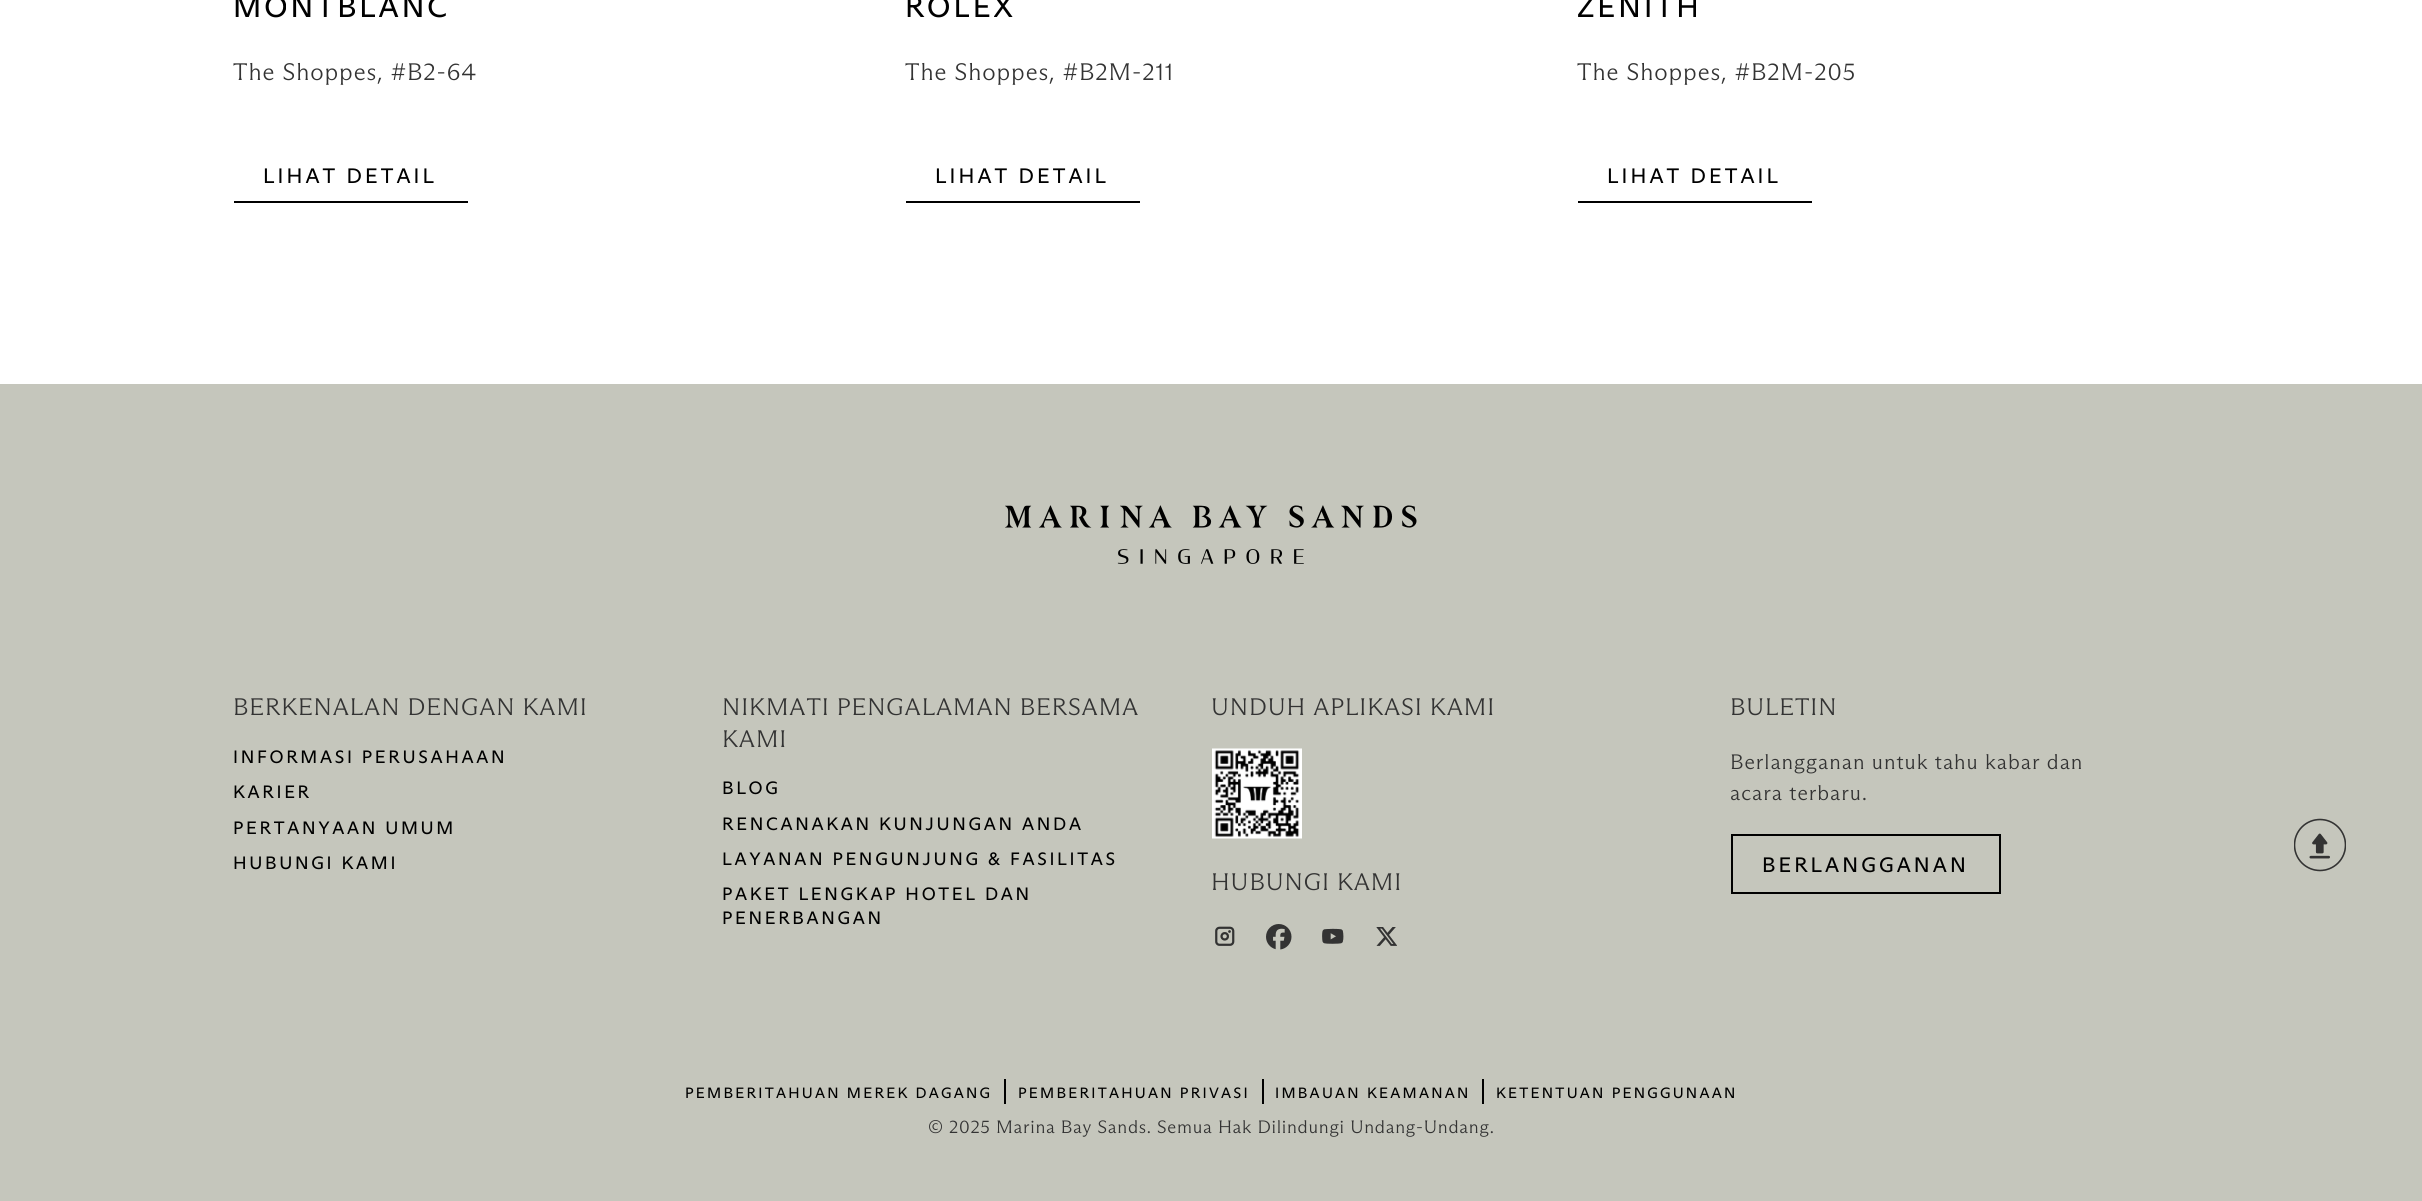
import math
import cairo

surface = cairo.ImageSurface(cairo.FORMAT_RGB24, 2422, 1201)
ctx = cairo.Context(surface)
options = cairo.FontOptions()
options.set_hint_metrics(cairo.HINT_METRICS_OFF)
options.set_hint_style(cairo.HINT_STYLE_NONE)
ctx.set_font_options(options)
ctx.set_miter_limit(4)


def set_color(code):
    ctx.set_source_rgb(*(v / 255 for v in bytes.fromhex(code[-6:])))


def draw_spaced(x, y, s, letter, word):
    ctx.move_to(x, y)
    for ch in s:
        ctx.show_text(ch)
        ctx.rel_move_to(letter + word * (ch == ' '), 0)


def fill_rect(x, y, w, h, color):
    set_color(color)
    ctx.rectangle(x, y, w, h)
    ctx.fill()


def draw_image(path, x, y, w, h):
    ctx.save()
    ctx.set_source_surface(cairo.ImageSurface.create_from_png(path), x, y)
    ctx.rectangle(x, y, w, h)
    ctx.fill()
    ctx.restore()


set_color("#ffffff")
ctx.paint()
ctx.select_font_face("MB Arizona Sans")
ctx.set_font_size(30)
set_color("#000000")
draw_spaced(233, 17, "MONTBLANC", 3, 0)
ctx.select_font_face("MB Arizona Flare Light")
ctx.set_font_size(24)
set_color("#333333")
draw_spaced(233, 80, "The Shoppes, #B2-64", 0.95, 0)
ctx.select_font_face("MB Arizona Sans")
ctx.set_font_size(21)
set_color("#000000")
draw_spaced(263, 183, "LIHAT DETAIL", 3.1, 0)
fill_rect(234, 201, 234, 2, "#000000")
ctx.set_font_size(30)
draw_spaced(905, 17, "ROLEX", 3, 0)
ctx.select_font_face("MB Arizona Flare Light")
ctx.set_font_size(24)
set_color("#333333")
draw_spaced(905, 80, "The Shoppes, #B2M-211", 0.95, 0)
ctx.select_font_face("MB Arizona Sans")
ctx.set_font_size(21)
set_color("#000000")
draw_spaced(935, 183, "LIHAT DETAIL", 3.1, 0)
fill_rect(906, 201, 234, 2, "#000000")
ctx.set_font_size(30)
draw_spaced(1577, 17, "ZENITH", 3, 0)
ctx.select_font_face("MB Arizona Flare Light")
ctx.set_font_size(24)
set_color("#333333")
draw_spaced(1577, 80, "The Shoppes, #B2M-205", 0.95, 0)
ctx.select_font_face("MB Arizona Sans")
ctx.set_font_size(21)
set_color("#000000")
draw_spaced(1607, 183, "LIHAT DETAIL", 3.1, 0)
fill_rect(1578, 201, 234, 2, "#000000")
fill_rect(0, 384, 2422, 817, "#c5c6bc")
draw_image("assets/img1.png", 1005, 505, 412, 59)
ctx.select_font_face("MB Arizona Flare Light")
ctx.set_font_size(24)
set_color("#333333")
draw_spaced(233, 715, "BERKENALAN DENGAN KAMI", 0.95, 0)
ctx.select_font_face("MB Arizona Sans")
ctx.set_font_size(18)
set_color("#000000")
draw_spaced(233, 763, "INFORMASI PERUSAHAAN", 2.7, 0)
draw_spaced(233, 798, "KARIER", 2.7, 0)
draw_spaced(233, 834, "PERTANYAAN UMUM", 2.7, 0)
draw_spaced(233, 869, "HUBUNGI KAMI", 2.7, 0)
ctx.select_font_face("MB Arizona Flare Light")
ctx.set_font_size(24)
set_color("#333333")
draw_spaced(722, 715, "NIKMATI PENGALAMAN BERSAMA", 0.95, 0)
draw_spaced(722, 747, "KAMI", 0.95, 0)
ctx.select_font_face("MB Arizona Sans")
ctx.set_font_size(18)
set_color("#000000")
draw_spaced(722, 794, "BLOG", 2.7, 0)
draw_spaced(722, 830, "RENCANAKAN KUNJUNGAN ANDA", 2.7, 0)
draw_spaced(722, 865, "LAYANAN PENGUNJUNG & FASILITAS", 2.7, 0)
draw_spaced(722, 900, "PAKET LENGKAP HOTEL DAN", 2.7, 0)
draw_spaced(722, 924, "PENERBANGAN", 2.7, 0)
ctx.select_font_face("MB Arizona Flare Light")
ctx.set_font_size(24)
set_color("#333333")
draw_spaced(1211, 715, "UNDUH APLIKASI KAMI", 0.95, 0)
draw_image("assets/img2.png", 1212, 748, 90, 91)
draw_spaced(1211, 890, "HUBUNGI KAMI", 0.95, 0)
draw_image("assets/img3.png", 1215, 926, 20, 20)
draw_image("assets/img4.png", 1266, 924, 26, 26)
draw_image("assets/img5.png", 1322, 928, 22, 16)
draw_image("assets/img6.png", 1376, 927, 21, 19)
draw_spaced(1730, 715, "BULETIN", 0.95, 0)
ctx.set_font_size(21)
draw_spaced(1730, 769, "Berlangganan untuk tahu kabar dan", 0.95, 0)
draw_spaced(1730, 800, "acara terbaru.", 0.95, 0)
ctx.rectangle(1732, 835, 268, 58)
set_color("#000000")
ctx.stroke()
ctx.select_font_face("MB Arizona Sans")
draw_spaced(1762, 872, "BERLANGGANAN", 3.1, 0)
fill_rect(1004, 1079, 2, 25, "#000000")
ctx.set_font_size(15)
draw_spaced(685, 1098, "PEMBERITAHUAN MEREK DAGANG", 2.25, 0)
fill_rect(1262, 1079, 2, 25, "#000000")
draw_spaced(1018, 1098, "PEMBERITAHUAN PRIVASI", 2.25, 0)
fill_rect(1482, 1079, 2, 25, "#000000")
draw_spaced(1275, 1098, "IMBAUAN KEAMANAN", 2.25, 0)
draw_spaced(1496, 1098, "KETENTUAN PENGGUNAAN", 2.25, 0)
ctx.select_font_face("MB Arizona Flare Light")
ctx.set_font_size(18)
set_color("#333333")
draw_spaced(928, 1133, "© 2025 Marina Bay Sands. Semua Hak Dilindungi Undang-Undang.", 0.72, 0)
draw_image("assets/img7.png", 2294, 818, 52, 54)
surface.write_to_png("output.png")
